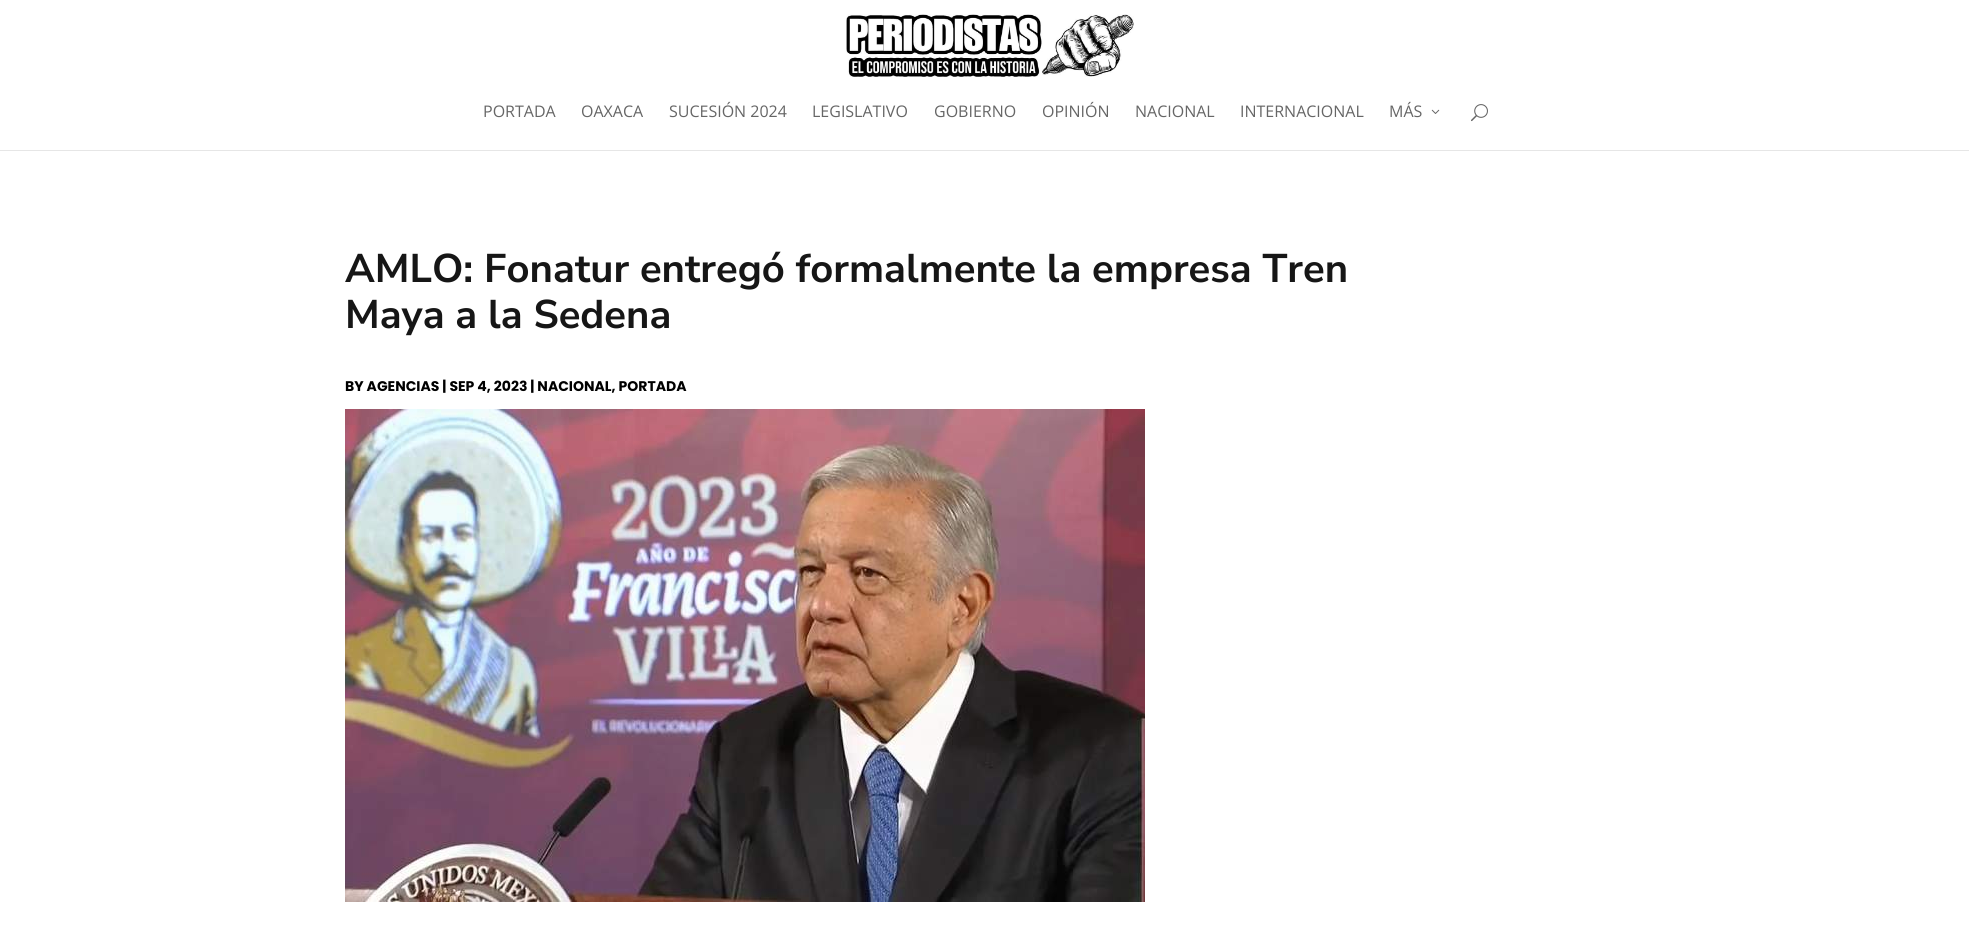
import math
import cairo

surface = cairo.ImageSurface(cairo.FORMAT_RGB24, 1969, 933)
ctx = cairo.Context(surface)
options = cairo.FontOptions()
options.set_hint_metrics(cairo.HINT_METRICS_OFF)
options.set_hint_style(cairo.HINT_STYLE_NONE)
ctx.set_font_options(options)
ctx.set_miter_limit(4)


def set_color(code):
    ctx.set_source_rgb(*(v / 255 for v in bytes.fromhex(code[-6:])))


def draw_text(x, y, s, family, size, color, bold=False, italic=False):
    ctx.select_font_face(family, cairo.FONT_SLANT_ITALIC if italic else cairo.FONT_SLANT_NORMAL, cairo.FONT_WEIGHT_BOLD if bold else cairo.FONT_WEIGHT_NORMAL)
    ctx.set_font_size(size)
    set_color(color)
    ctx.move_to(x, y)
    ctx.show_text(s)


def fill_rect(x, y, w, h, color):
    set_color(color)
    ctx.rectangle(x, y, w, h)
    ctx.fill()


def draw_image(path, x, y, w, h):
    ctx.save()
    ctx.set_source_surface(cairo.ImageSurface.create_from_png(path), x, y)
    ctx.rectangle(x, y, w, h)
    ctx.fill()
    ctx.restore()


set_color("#ffffff")
ctx.paint()
fill_rect(0, 150, 1969, 1, "#e6e6e6")
draw_image("assets/img1.png", 846, 14, 288, 63)
draw_text(483, 117, "PORTADA", "Open Sans", 16, "#666666")
draw_text(581, 117, "OAXACA", "Open Sans", 16, "#666666")
draw_text(669, 117, "SUCESIÓN 2024", "Open Sans", 16, "#666666")
draw_text(812, 117, "LEGISLATIVO", "Open Sans", 16, "#666666")
draw_text(934, 117, "GOBIERNO", "Open Sans", 16, "#666666")
draw_text(1042, 117, "OPINIÓN", "Open Sans", 16, "#666666")
draw_text(1135, 117, "NACIONAL", "Open Sans", 16, "#666666")
draw_text(1240, 117, "INTERNACIONAL", "Open Sans", 16, "#666666")
draw_text(1389, 117, "MÁS", "Open Sans", 16, "#666666")
draw_image("assets/img2.png", 1431, 109, 9, 5)
draw_image("assets/img3.png", 1471, 104, 17, 18)
draw_text(345, 282, "AMLO: Fonatur entregó formalmente la empresa Tren", "Nunito Sans", 40, "#161616", bold=True)
draw_text(345, 328, "Maya a la Sedena", "Nunito Sans", 40, "#161616", bold=True)
draw_text(345, 391, "BY AGENCIAS | SEP 4, 2023 | NACIONAL, PORTADA", "Poppins", 14, "#000000", bold=True)
draw_image("assets/img4.png", 345, 409, 800, 493)
surface.write_to_png("output.png")
